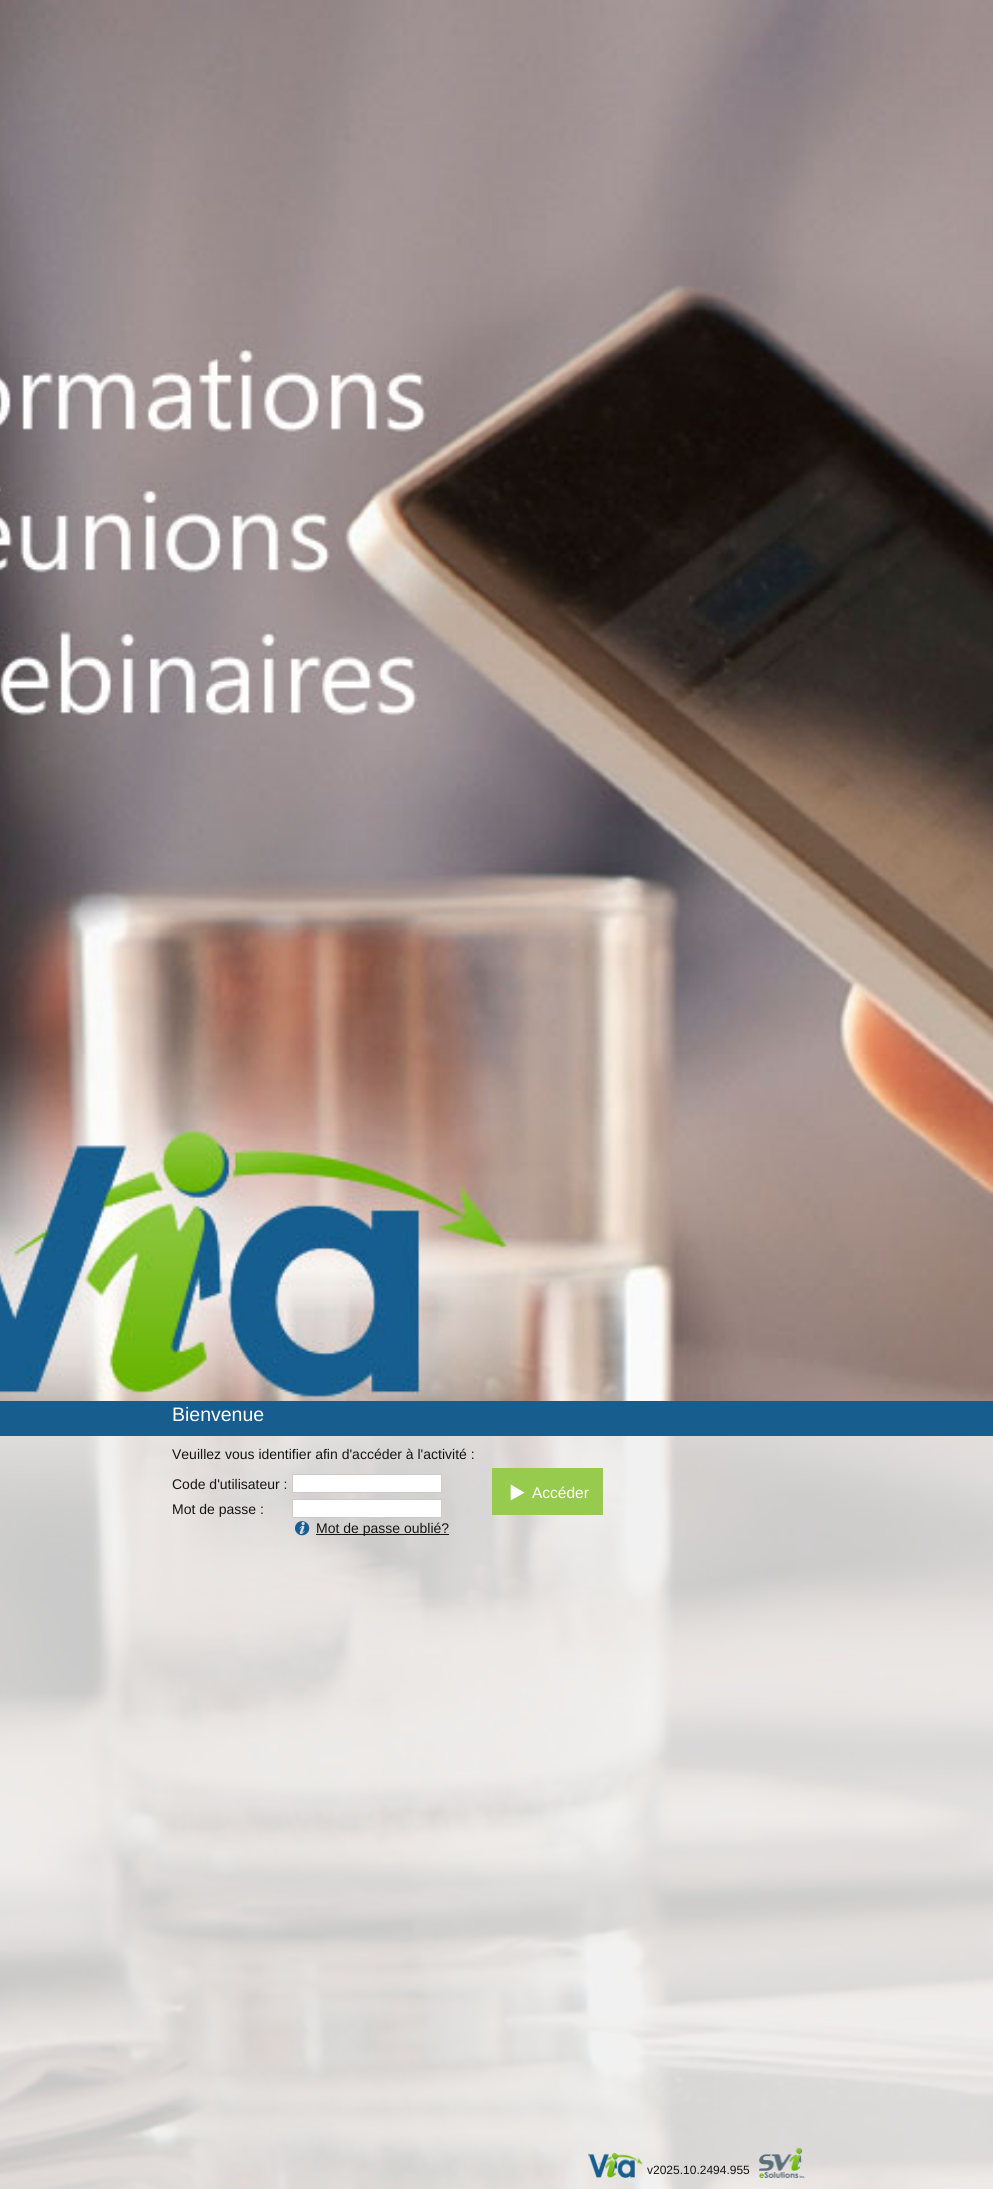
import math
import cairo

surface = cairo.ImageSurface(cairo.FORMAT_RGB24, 993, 2189)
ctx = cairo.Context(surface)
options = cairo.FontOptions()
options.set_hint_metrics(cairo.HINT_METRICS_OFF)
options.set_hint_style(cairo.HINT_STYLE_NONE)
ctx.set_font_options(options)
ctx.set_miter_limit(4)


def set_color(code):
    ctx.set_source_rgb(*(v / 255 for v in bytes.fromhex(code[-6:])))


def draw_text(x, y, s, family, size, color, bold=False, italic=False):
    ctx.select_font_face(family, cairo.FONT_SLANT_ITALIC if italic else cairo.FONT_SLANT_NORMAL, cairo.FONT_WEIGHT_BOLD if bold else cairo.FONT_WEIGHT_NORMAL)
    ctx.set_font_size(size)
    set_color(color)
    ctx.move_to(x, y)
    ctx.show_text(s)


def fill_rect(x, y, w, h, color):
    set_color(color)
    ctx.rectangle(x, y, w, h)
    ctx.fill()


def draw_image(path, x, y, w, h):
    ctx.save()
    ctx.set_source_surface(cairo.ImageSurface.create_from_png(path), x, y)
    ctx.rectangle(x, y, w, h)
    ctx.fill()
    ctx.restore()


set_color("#ffffff")
ctx.paint()
draw_image("assets/img1.png", 0, 0, 993, 2189)
ctx.set_source_rgba(0.933, 0.933, 0.933, 0.8)
ctx.rectangle(0, 1436, 993, 753)
ctx.fill()
fill_rect(0, 1401, 993, 35, "#175e8f")
draw_text(172, 1421, "Bienvenue", "Liberation Sans", 19.5, "#ffffff")
draw_text(172, 1459, "Veuillez vous identifier afin d'accéder à l'activité :", "Liberation Sans", 14, "#151515")
draw_text(172, 1489, "Code d'utilisateur :", "Liberation Sans", 14, "#151515")
set_color("#ffffff")
ctx.rectangle(292.5, 1474.5, 149, 18)
ctx.fill_preserve()
set_color("#cccccc")
ctx.set_line_width(1)
ctx.stroke()
fill_rect(492, 1468, 111, 47, "#96cb4d")
draw_text(512, 1500, "p", "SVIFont", 15.5, "#ffffff")
draw_text(532, 1498, "Accéder", "Liberation Sans", 15.5, "#ffffff")
draw_text(172, 1514, "Mot de passe :", "Liberation Sans", 14, "#151515")
set_color("#ffffff")
ctx.rectangle(292.5, 1499.5, 149, 18)
ctx.fill_preserve()
set_color("#cccccc")
ctx.stroke()
draw_text(297, 1535, "7", "SVIFont", 14, "#175e8f")
fill_rect(316, 1534, 133, 1, "#151515")
draw_text(316, 1533, "Mot de passe oublié?", "Liberation Sans", 14, "#151515")
draw_image("assets/img2.png", 588, 2153, 55, 25)
draw_text(647, 2174, "v2025.10.2494.955", "Liberation Sans", 12, "#151515")
draw_image("assets/img3.png", 759, 2148, 46, 30)
surface.write_to_png("output.png")
